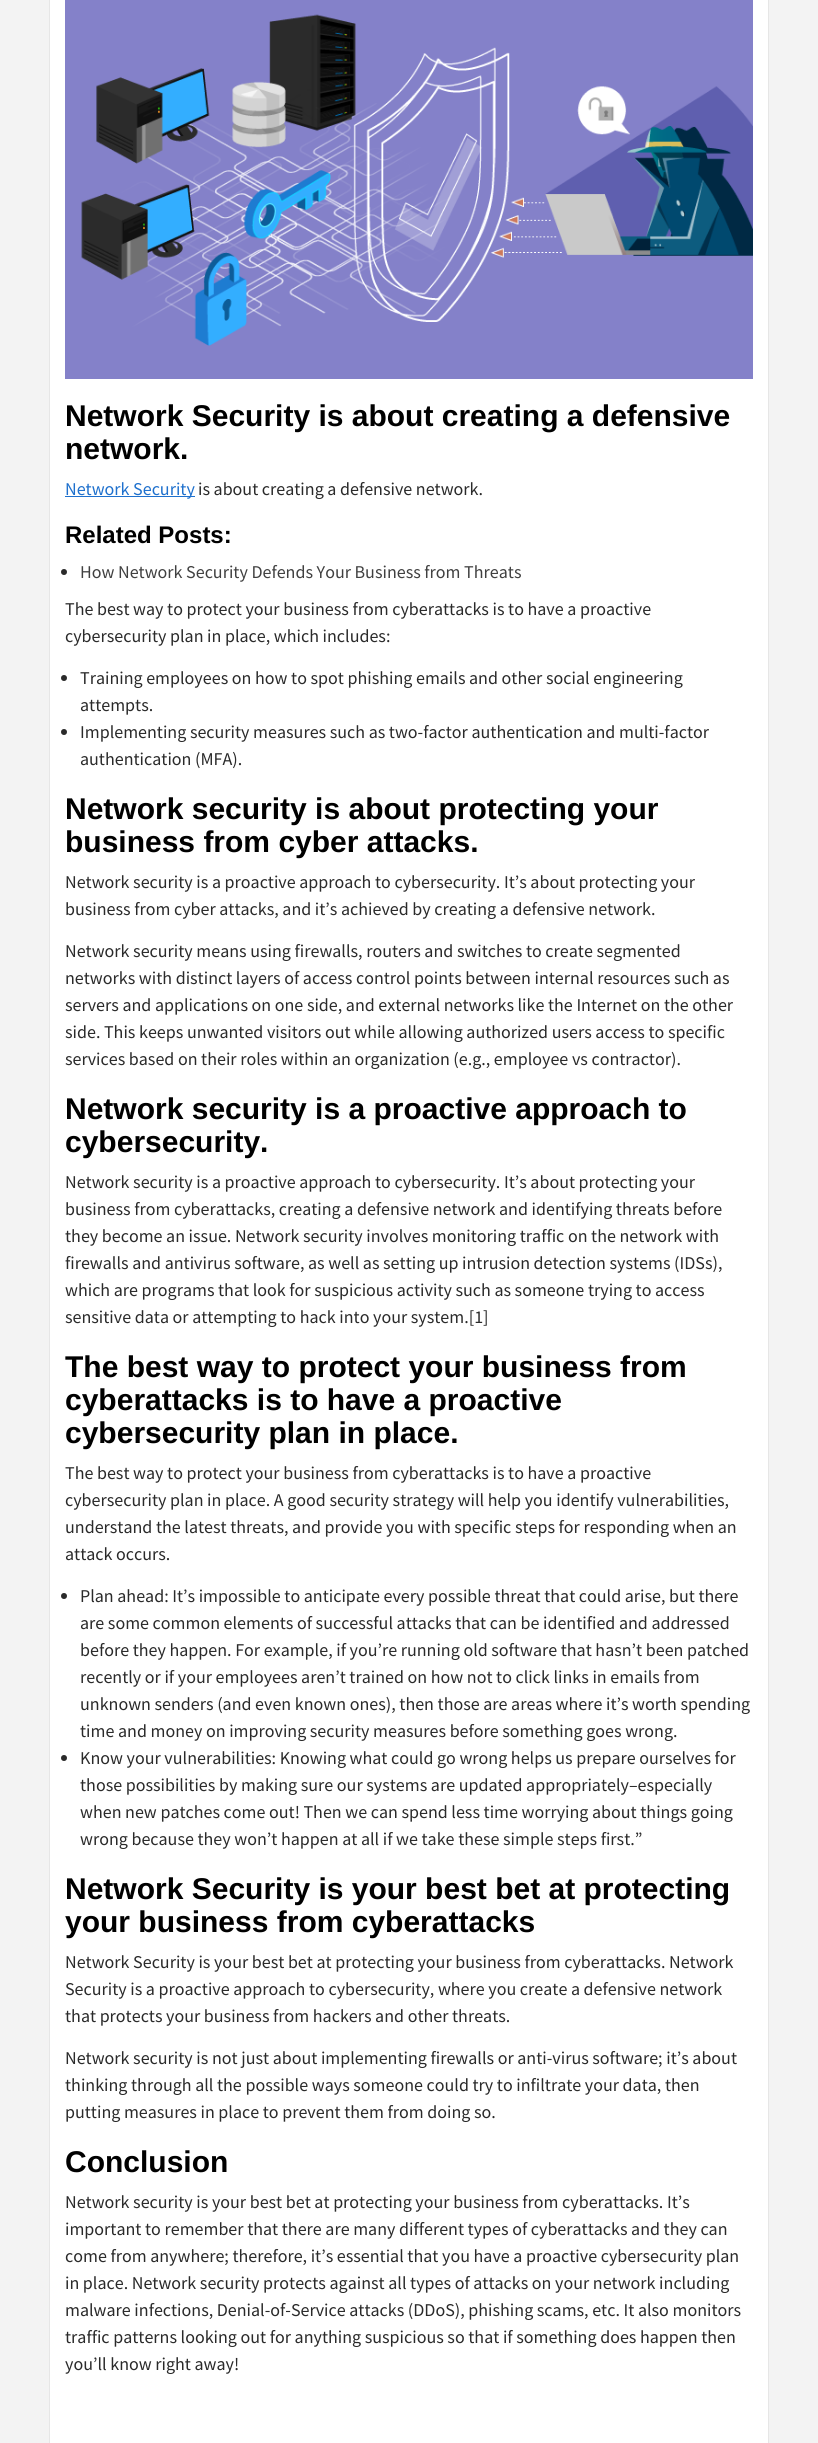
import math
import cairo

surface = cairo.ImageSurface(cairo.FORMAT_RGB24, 818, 2443)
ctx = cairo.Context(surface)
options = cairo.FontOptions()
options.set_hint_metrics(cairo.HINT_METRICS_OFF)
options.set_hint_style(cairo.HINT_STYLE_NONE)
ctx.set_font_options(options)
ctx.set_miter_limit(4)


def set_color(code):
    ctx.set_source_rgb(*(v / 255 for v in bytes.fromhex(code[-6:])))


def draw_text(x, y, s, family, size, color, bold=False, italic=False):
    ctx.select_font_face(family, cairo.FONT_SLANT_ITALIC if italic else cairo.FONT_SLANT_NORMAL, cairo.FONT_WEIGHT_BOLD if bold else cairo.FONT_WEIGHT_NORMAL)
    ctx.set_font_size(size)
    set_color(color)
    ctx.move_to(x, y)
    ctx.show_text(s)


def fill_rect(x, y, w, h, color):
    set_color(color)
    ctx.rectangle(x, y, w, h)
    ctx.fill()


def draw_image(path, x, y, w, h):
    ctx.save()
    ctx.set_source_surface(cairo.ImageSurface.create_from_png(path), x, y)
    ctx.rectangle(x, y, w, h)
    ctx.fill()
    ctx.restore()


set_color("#f3f3f3")
ctx.paint()
set_color("#ffffff")
ctx.rectangle(49.5, -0.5, 719, 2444)
ctx.fill_preserve()
set_color("#e6e6e6")
ctx.set_line_width(1)
ctx.stroke()
draw_image("assets/img1.png", 65, 0, 688, 379)
draw_text(65, 426, "Network Security is about creating a defensive", "Liberation Sans", 30, "#000000", bold=True)
draw_text(65, 459, "network.", "Liberation Sans", 30, "#000000", bold=True)
fill_rect(65, 496, 130, 1, "#1e70cd")
draw_text(65, 495, "Network Security", "Source Sans Pro", 18, "#1e70cd")
draw_text(198, 495, "is about creating a defensive network.", "Source Sans Pro", 18, "#2a2a2a")
draw_text(65, 543, "Related Posts:", "Liberation Sans", 24, "#000000", bold=True)
set_color("#2a2a2a")
ctx.new_path()
ctx.arc(64, 572, 3, 0, 2 * math.pi)
ctx.fill()
draw_text(80, 578, "How Network Security Defends Your Business from Threats", "Source Sans Pro", 18, "#404040")
draw_text(65, 615, "The best way to protect your business from cyberattacks is to have a proactive", "Source Sans Pro", 18, "#2a2a2a")
draw_text(65, 642, "cybersecurity plan in place, which includes:", "Source Sans Pro", 18, "#2a2a2a")
ctx.new_path()
ctx.arc(64, 678, 3, 0, 2 * math.pi)
ctx.fill()
draw_text(80, 684, "Training employees on how to spot phishing emails and other social engineering", "Source Sans Pro", 18, "#2a2a2a")
draw_text(80, 711, "attempts.", "Source Sans Pro", 18, "#2a2a2a")
ctx.new_path()
ctx.arc(64, 732, 3, 0, 2 * math.pi)
ctx.fill()
draw_text(80, 738, "Implementing security measures such as two-factor authentication and multi-factor", "Source Sans Pro", 18, "#2a2a2a")
draw_text(80, 765, "authentication (MFA).", "Source Sans Pro", 18, "#2a2a2a")
draw_text(65, 819, "Network security is about protecting your", "Liberation Sans", 30, "#000000", bold=True)
draw_text(65, 852, "business from cyber attacks.", "Liberation Sans", 30, "#000000", bold=True)
draw_text(65, 888, "Network security is a proactive approach to cybersecurity. It’s about protecting your", "Source Sans Pro", 18, "#2a2a2a")
draw_text(65, 915, "business from cyber attacks, and it’s achieved by creating a defensive network.", "Source Sans Pro", 18, "#2a2a2a")
draw_text(65, 957, "Network security means using firewalls, routers and switches to create segmented", "Source Sans Pro", 18, "#2a2a2a")
draw_text(65, 984, "networks with distinct layers of access control points between internal resources such as", "Source Sans Pro", 18, "#2a2a2a")
draw_text(65, 1011, "servers and applications on one side, and external networks like the Internet on the other", "Source Sans Pro", 18, "#2a2a2a")
draw_text(65, 1038, "side. This keeps unwanted visitors out while allowing authorized users access to specific", "Source Sans Pro", 18, "#2a2a2a")
draw_text(65, 1065, "services based on their roles within an organization (e.g., employee vs contractor).", "Source Sans Pro", 18, "#2a2a2a")
draw_text(65, 1119, "Network security is a proactive approach to", "Liberation Sans", 30, "#000000", bold=True)
draw_text(65, 1152, "cybersecurity.", "Liberation Sans", 30, "#000000", bold=True)
draw_text(65, 1188, "Network security is a proactive approach to cybersecurity. It’s about protecting your", "Source Sans Pro", 18, "#2a2a2a")
draw_text(65, 1215, "business from cyberattacks, creating a defensive network and identifying threats before", "Source Sans Pro", 18, "#2a2a2a")
draw_text(65, 1242, "they become an issue. Network security involves monitoring traffic on the network with", "Source Sans Pro", 18, "#2a2a2a")
draw_text(65, 1269, "firewalls and antivirus software, as well as setting up intrusion detection systems (IDSs),", "Source Sans Pro", 18, "#2a2a2a")
draw_text(65, 1296, "which are programs that look for suspicious activity such as someone trying to access", "Source Sans Pro", 18, "#2a2a2a")
draw_text(65, 1323, "sensitive data or attempting to hack into your system.[1]", "Source Sans Pro", 18, "#2a2a2a")
draw_text(65, 1377, "The best way to protect your business from", "Liberation Sans", 30, "#000000", bold=True)
draw_text(65, 1410, "cyberattacks is to have a proactive", "Liberation Sans", 30, "#000000", bold=True)
draw_text(65, 1443, "cybersecurity plan in place.", "Liberation Sans", 30, "#000000", bold=True)
draw_text(65, 1479, "The best way to protect your business from cyberattacks is to have a proactive", "Source Sans Pro", 18, "#2a2a2a")
draw_text(65, 1506, "cybersecurity plan in place. A good security strategy will help you identify vulnerabilities,", "Source Sans Pro", 18, "#2a2a2a")
draw_text(65, 1533, "understand the latest threats, and provide you with specific steps for responding when an", "Source Sans Pro", 18, "#2a2a2a")
draw_text(65, 1560, "attack occurs.", "Source Sans Pro", 18, "#2a2a2a")
ctx.new_path()
ctx.arc(64, 1596, 3, 0, 2 * math.pi)
ctx.fill()
draw_text(80, 1602, "Plan ahead: It’s impossible to anticipate every possible threat that could arise, but there", "Source Sans Pro", 18, "#2a2a2a")
draw_text(80, 1629, "are some common elements of successful attacks that can be identified and addressed", "Source Sans Pro", 18, "#2a2a2a")
draw_text(80, 1656, "before they happen. For example, if you’re running old software that hasn’t been patched", "Source Sans Pro", 18, "#2a2a2a")
draw_text(80, 1683, "recently or if your employees aren’t trained on how not to click links in emails from", "Source Sans Pro", 18, "#2a2a2a")
draw_text(80, 1710, "unknown senders (and even known ones), then those are areas where it’s worth spending", "Source Sans Pro", 18, "#2a2a2a")
draw_text(80, 1737, "time and money on improving security measures before something goes wrong.", "Source Sans Pro", 18, "#2a2a2a")
ctx.new_path()
ctx.arc(64, 1758, 3, 0, 2 * math.pi)
ctx.fill()
draw_text(80, 1764, "Know your vulnerabilities: Knowing what could go wrong helps us prepare ourselves for", "Source Sans Pro", 18, "#2a2a2a")
draw_text(80, 1791, "those possibilities by making sure our systems are updated appropriately–especially", "Source Sans Pro", 18, "#2a2a2a")
draw_text(80, 1818, "when new patches come out! Then we can spend less time worrying about things going", "Source Sans Pro", 18, "#2a2a2a")
draw_text(80, 1845, "wrong because they won’t happen at all if we take these simple steps first.”", "Source Sans Pro", 18, "#2a2a2a")
draw_text(65, 1899, "Network Security is your best bet at protecting", "Liberation Sans", 30, "#000000", bold=True)
draw_text(65, 1932, "your business from cyberattacks", "Liberation Sans", 30, "#000000", bold=True)
draw_text(65, 1968, "Network Security is your best bet at protecting your business from cyberattacks. Network", "Source Sans Pro", 18, "#2a2a2a")
draw_text(65, 1995, "Security is a proactive approach to cybersecurity, where you create a defensive network", "Source Sans Pro", 18, "#2a2a2a")
draw_text(65, 2022, "that protects your business from hackers and other threats.", "Source Sans Pro", 18, "#2a2a2a")
draw_text(65, 2064, "Network security is not just about implementing firewalls or anti-virus software; it’s about", "Source Sans Pro", 18, "#2a2a2a")
draw_text(65, 2091, "thinking through all the possible ways someone could try to infiltrate your data, then", "Source Sans Pro", 18, "#2a2a2a")
draw_text(65, 2118, "putting measures in place to prevent them from doing so.", "Source Sans Pro", 18, "#2a2a2a")
draw_text(65, 2172, "Conclusion", "Liberation Sans", 30, "#000000", bold=True)
draw_text(65, 2208, "Network security is your best bet at protecting your business from cyberattacks. It’s", "Source Sans Pro", 18, "#2a2a2a")
draw_text(65, 2235, "important to remember that there are many different types of cyberattacks and they can", "Source Sans Pro", 18, "#2a2a2a")
draw_text(65, 2262, "come from anywhere; therefore, it’s essential that you have a proactive cybersecurity plan", "Source Sans Pro", 18, "#2a2a2a")
draw_text(65, 2289, "in place. Network security protects against all types of attacks on your network including", "Source Sans Pro", 18, "#2a2a2a")
draw_text(65, 2316, "malware infections, Denial-of-Service attacks (DDoS), phishing scams, etc. It also monitors", "Source Sans Pro", 18, "#2a2a2a")
draw_text(65, 2343, "traffic patterns looking out for anything suspicious so that if something does happen then", "Source Sans Pro", 18, "#2a2a2a")
draw_text(65, 2370, "you’ll know right away!", "Source Sans Pro", 18, "#2a2a2a")
surface.write_to_png("output.png")
